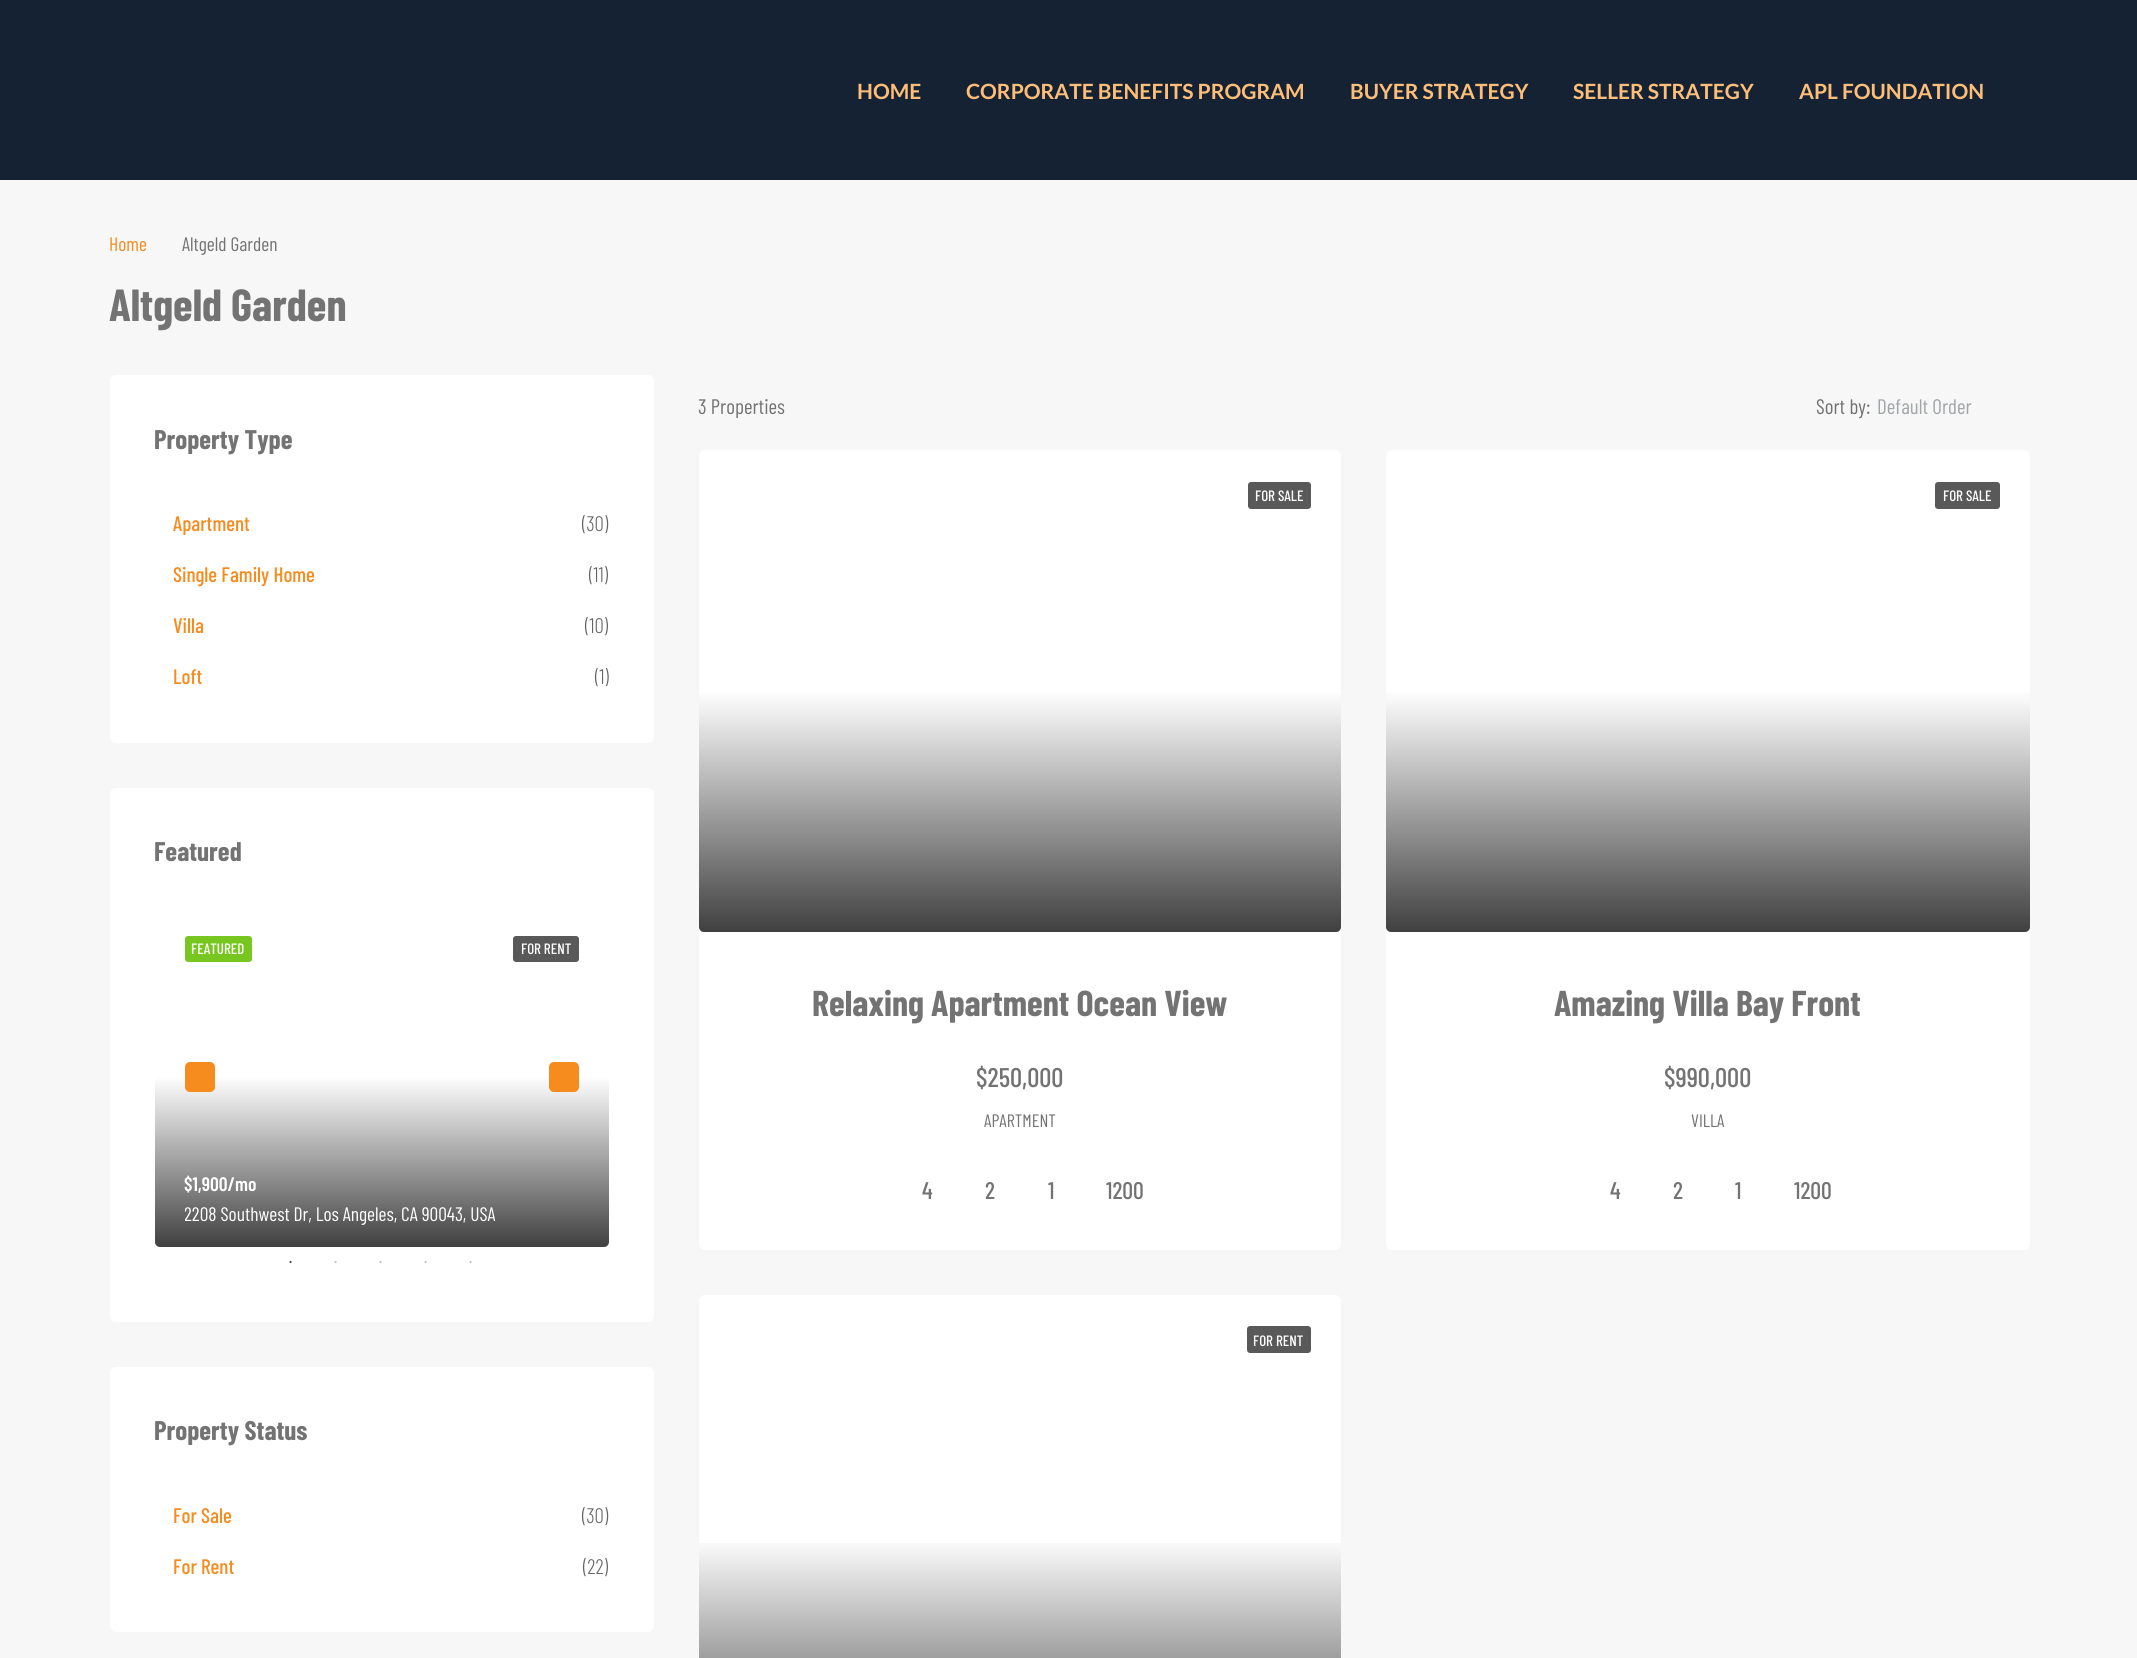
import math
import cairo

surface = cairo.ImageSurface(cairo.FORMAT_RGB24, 2137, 1658)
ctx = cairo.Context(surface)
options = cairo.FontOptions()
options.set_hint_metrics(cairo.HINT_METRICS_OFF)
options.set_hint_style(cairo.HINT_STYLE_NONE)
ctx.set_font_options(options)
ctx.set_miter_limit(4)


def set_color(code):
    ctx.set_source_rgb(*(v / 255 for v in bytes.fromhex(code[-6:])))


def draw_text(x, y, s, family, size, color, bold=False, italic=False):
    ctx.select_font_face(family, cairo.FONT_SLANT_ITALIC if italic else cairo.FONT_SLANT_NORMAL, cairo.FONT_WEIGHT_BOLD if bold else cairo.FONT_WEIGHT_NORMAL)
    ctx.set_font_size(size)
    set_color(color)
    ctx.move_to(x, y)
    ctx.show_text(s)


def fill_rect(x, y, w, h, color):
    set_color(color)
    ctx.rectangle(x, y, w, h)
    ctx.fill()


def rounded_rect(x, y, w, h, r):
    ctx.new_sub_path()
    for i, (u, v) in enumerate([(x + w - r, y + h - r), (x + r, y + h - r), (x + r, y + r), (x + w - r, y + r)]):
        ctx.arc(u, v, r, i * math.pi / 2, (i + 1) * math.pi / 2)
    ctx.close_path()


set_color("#f7f7f7")
ctx.paint()
fill_rect(0, 0, 2137, 180, "#142234")
draw_text(857, 99, "HOME", "Lato", 21, "#ffbe78", bold=True)
draw_text(966, 99, "CORPORATE BENEFITS PROGRAM", "Lato", 21, "#ffbe78", bold=True)
draw_text(1350, 99, "BUYER STRATEGY", "Lato", 21, "#ffbe78", bold=True)
draw_text(1573, 99, "SELLER STRATEGY", "Lato", 21, "#ffbe78", bold=True)
draw_text(1799, 99, "APL FOUNDATION", "Lato", 21, "#ffbe78", bold=True)
draw_text(109, 251, "Home", "Barlow Condensed", 19.5, "#f68b1e")
draw_text(182, 251, "Altgeld Garden", "Barlow Condensed", 19.5, "#737373")
draw_text(109, 321, "Altgeld Garden", "Barlow Condensed", 45, "#737373", bold=True)
set_color("#ffffff")
rounded_rect(110, 375, 544, 368, 6)
ctx.fill()
draw_text(154, 449, "Property Type", "Barlow Condensed", 27, "#737373", bold=True)
draw_text(173, 531, "Apartment", "Barlow Condensed Medium", 21, "#f68b1e")
draw_text(582, 531, "(30)", "Barlow Condensed Light", 21, "#636363")
draw_text(173, 582, "Single Family Home", "Barlow Condensed Medium", 21, "#f68b1e")
draw_text(589, 582, "(11)", "Barlow Condensed Light", 21, "#636363")
draw_text(173, 633, "Villa", "Barlow Condensed Medium", 21, "#f68b1e")
draw_text(585, 633, "(10)", "Barlow Condensed Light", 21, "#636363")
draw_text(173, 684, "Loft", "Barlow Condensed Medium", 21, "#f68b1e")
draw_text(595, 684, "(1)", "Barlow Condensed Light", 21, "#636363")
set_color("#ffffff")
rounded_rect(110, 788, 544, 534, 6)
ctx.fill()
draw_text(154, 861, "Featured", "Barlow Condensed", 27, "#737373", bold=True)
set_color("#595959")
rounded_rect(513, 936, 66, 26, 3)
ctx.fill()
draw_text(521, 954, "FOR RENT", "Barlow Condensed Medium", 15, "#ffffff")
gradient = cairo.LinearGradient(382, 906, 382, 1247)
gradient.add_color_stop_rgba(0, 0, 0, 0, 0)
gradient.add_color_stop_rgba(0.5, 0, 0, 0, 0)
gradient.add_color_stop_rgba(1, 0, 0, 0, 0.75)
ctx.set_source(gradient)
rounded_rect(155, 906, 454, 341, 5)
ctx.fill()
set_color("#77c720")
rounded_rect(185, 936, 67, 26, 3)
ctx.fill()
draw_text(191, 954, "FEATURED", "Barlow Condensed Medium", 15, "#ffffff")
draw_text(184, 1191, "$1,900/mo", "Barlow Condensed SemiBold", 19.5, "#ffffff")
ctx.save()
ctx.rectangle(185, 1196, 310, 36)
ctx.clip()
draw_text(184, 1221, "2208 Southwest Dr, Los Angeles, CA 90043, USA", "Barlow Condensed", 19.5, "#ffffff")
ctx.restore()
set_color("#f68b1e")
rounded_rect(185, 1062, 30, 30, 5)
ctx.fill()
rounded_rect(549, 1062, 30, 30, 5)
ctx.fill()
draw_text(289, 1265, "•", "Liberation Serif", 9, "#404040")
draw_text(334, 1265, "•", "Liberation Serif", 9, "#bfbfbf")
draw_text(379, 1265, "•", "Liberation Serif", 9, "#bfbfbf")
draw_text(424, 1265, "•", "Liberation Serif", 9, "#bfbfbf")
draw_text(469, 1265, "•", "Liberation Serif", 9, "#bfbfbf")
set_color("#ffffff")
rounded_rect(110, 1367, 544, 265, 6)
ctx.fill()
draw_text(154, 1440, "Property Status", "Barlow Condensed", 27, "#737373", bold=True)
draw_text(173, 1523, "For Sale", "Barlow Condensed Medium", 21, "#f68b1e")
draw_text(582, 1523, "(30)", "Barlow Condensed Light", 21, "#636363")
draw_text(173, 1574, "For Rent", "Barlow Condensed Medium", 21, "#f68b1e")
draw_text(583, 1574, "(22)", "Barlow Condensed Light", 21, "#636363")
draw_text(698, 414, "3 Properties", "Barlow Condensed", 21, "#737373")
draw_text(1816, 414, "Sort by:", "Barlow Condensed", 21, "#737373")
draw_text(1877, 414, "Default Order", "Barlow Condensed", 21, "#a1a7a8")
set_color("#ffffff")
rounded_rect(699, 450, 642, 800, 6)
ctx.fill()
set_color("#595959")
rounded_rect(1248, 482, 63, 27, 3)
ctx.fill()
draw_text(1255, 501, "FOR SALE", "Barlow Condensed Medium", 15, "#ffffff")
gradient = cairo.LinearGradient(1020, 450, 1020, 932)
gradient.add_color_stop_rgba(0, 0, 0, 0, 0)
gradient.add_color_stop_rgba(0.5, 0, 0, 0, 0)
gradient.add_color_stop_rgba(1, 0, 0, 0, 0.75)
ctx.set_source(gradient)
rounded_rect(699, 450, 642, 482, 5)
ctx.fill()
draw_text(812, 1016, "Relaxing Apartment Ocean View", "Barlow Condensed", 36, "#737373", bold=True)
draw_text(976, 1087, "$250,000", "Barlow Condensed Medium", 27, "#737373")
draw_text(984, 1127, "APARTMENT", "Barlow Condensed", 18, "#737373")
draw_text(922, 1199, "4", "Barlow Condensed Medium", 24, "#737373")
draw_text(985, 1199, "2", "Barlow Condensed Medium", 24, "#737373")
draw_text(1048, 1199, "1", "Barlow Condensed Medium", 24, "#737373")
draw_text(1106, 1199, "1200", "Barlow Condensed Medium", 24, "#737373")
set_color("#ffffff")
rounded_rect(1386, 450, 644, 800, 6)
ctx.fill()
set_color("#595959")
rounded_rect(1935, 482, 65, 27, 3)
ctx.fill()
draw_text(1943, 501, "FOR SALE", "Barlow Condensed Medium", 15, "#ffffff")
gradient = cairo.LinearGradient(1708, 450, 1708, 932)
gradient.add_color_stop_rgba(0, 0, 0, 0, 0)
gradient.add_color_stop_rgba(0.5, 0, 0, 0, 0)
gradient.add_color_stop_rgba(1, 0, 0, 0, 0.75)
ctx.set_source(gradient)
rounded_rect(1386, 450, 644, 482, 5)
ctx.fill()
draw_text(1554, 1016, "Amazing Villa Bay Front", "Barlow Condensed", 36, "#737373", bold=True)
draw_text(1664, 1087, "$990,000", "Barlow Condensed Medium", 27, "#737373")
draw_text(1691, 1127, "VILLA", "Barlow Condensed", 18, "#737373")
draw_text(1610, 1199, "4", "Barlow Condensed Medium", 24, "#737373")
draw_text(1673, 1199, "2", "Barlow Condensed Medium", 24, "#737373")
draw_text(1735, 1199, "1", "Barlow Condensed Medium", 24, "#737373")
draw_text(1794, 1199, "1200", "Barlow Condensed Medium", 24, "#737373")
set_color("#ffffff")
rounded_rect(699, 1295, 642, 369, 6)
ctx.fill()
set_color("#595959")
rounded_rect(1247, 1326, 64, 27, 3)
ctx.fill()
draw_text(1253, 1346, "FOR RENT", "Barlow Condensed Medium", 15, "#ffffff")
gradient = cairo.LinearGradient(1020, 1295, 1020, 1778)
gradient.add_color_stop_rgba(0, 0, 0, 0, 0)
gradient.add_color_stop_rgba(0.5, 0, 0, 0, 0)
gradient.add_color_stop_rgba(1, 0, 0, 0, 0.75)
ctx.set_source(gradient)
ctx.rectangle(699, 1543, 642, 115)
ctx.fill()
surface.write_to_png("output.png")
